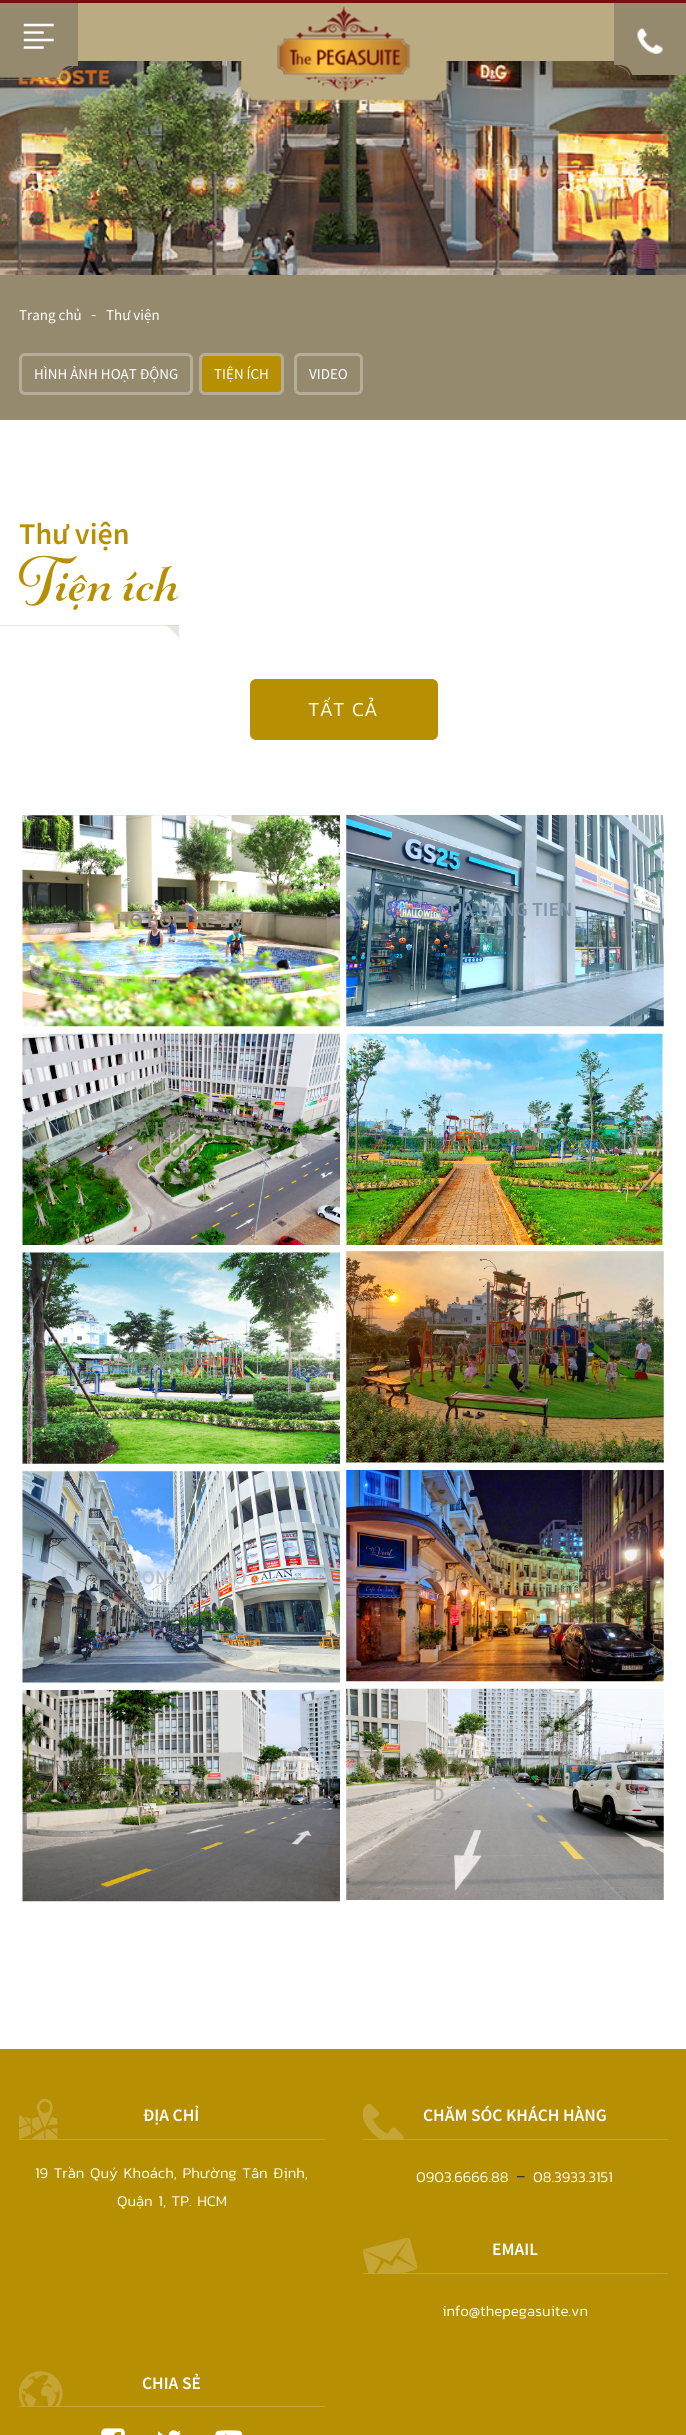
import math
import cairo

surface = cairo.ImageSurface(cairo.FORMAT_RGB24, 686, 2435)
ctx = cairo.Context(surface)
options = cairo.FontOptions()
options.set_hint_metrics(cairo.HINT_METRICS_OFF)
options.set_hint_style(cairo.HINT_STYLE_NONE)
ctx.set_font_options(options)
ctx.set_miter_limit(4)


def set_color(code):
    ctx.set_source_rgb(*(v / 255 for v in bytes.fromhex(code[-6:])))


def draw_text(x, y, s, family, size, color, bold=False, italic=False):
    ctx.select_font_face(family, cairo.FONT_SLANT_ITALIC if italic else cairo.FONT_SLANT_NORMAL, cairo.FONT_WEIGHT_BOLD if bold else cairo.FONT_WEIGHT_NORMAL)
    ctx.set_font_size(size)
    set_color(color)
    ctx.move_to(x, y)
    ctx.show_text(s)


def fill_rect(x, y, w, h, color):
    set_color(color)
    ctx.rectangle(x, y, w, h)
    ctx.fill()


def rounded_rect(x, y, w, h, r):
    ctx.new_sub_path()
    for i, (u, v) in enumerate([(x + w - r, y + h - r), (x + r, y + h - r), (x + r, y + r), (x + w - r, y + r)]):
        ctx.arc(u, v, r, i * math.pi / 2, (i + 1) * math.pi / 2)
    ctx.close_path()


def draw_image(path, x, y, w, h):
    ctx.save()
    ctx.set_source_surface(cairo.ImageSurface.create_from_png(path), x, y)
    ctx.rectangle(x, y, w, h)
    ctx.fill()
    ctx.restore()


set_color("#ffffff")
ctx.paint()
fill_rect(78, 3, 536, 58, "#baab83")
fill_rect(0, 0, 686, 3, "#741012")
draw_image("assets/img6.png", 0, 61, 686, 214)
draw_image("assets/img1.png", 0, 3, 78, 77)
draw_image("assets/img2.png", 23, 23, 31, 26)
draw_image("assets/img3.png", 238, 6, 211, 97)
draw_image("assets/img4.png", 614, 3, 72, 72)
draw_image("assets/img5.png", 637, 28, 26, 26)
fill_rect(0, 275, 686, 145, "#958a6e")
draw_text(19, 320, "Trang chủ", "Source Sans Pro", 15, "#ffffff")
draw_text(91, 320, "-", "Source Sans Pro", 17.5, "#ffffff", italic=True)
draw_text(106, 320, "Thư viện", "Source Sans Pro", 15, "#ffffff")
rounded_rect(20.5, 354.5, 171, 39, 4.5)
set_color("#b5ad9a")
ctx.set_line_width(3)
ctx.stroke()
draw_text(34, 379, "HÌNH ẢNH HOẠT ĐỘNG", "Source Sans Pro", 15, "#ffffff")
set_color("#b78f03")
rounded_rect(200.5, 354.5, 82, 39, 4.5)
ctx.fill_preserve()
set_color("#b5ad9a")
ctx.stroke()
draw_text(214, 379, "TIỆN ÍCH", "Source Sans Pro", 15, "#ffffff")
rounded_rect(295.5, 354.5, 66, 39, 4.5)
set_color("#b5ad9a")
ctx.stroke()
draw_text(309, 379, "VIDEO", "Source Sans Pro", 15, "#ffffff")
fill_rect(0, 625, 179, 1, "#eae8e2")
draw_text(19, 544, "Thư viện", "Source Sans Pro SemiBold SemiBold", 30, "#b78f03")
draw_text(19, 601, "Tiện ích", "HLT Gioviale", 72.5, "#b78f03")
ctx.set_source_rgba(0.584, 0.541, 0.431, 0.2)
ctx.new_path()
ctx.move_to(179, 625)
ctx.line_to(179, 637.5)
ctx.line_to(166, 625)
ctx.close_path()
ctx.fill()
set_color("#b78f03")
rounded_rect(251.5, 680.5, 185, 58, 4.5)
ctx.fill_preserve()
ctx.stroke()
draw_text(308, 716, "TẤT CẢ", "Kanit Light", 20, "#ffffff")
draw_image("assets/img7.png", 22, 815, 318, 212)
draw_text(116, 927, "HO BOI TRE EM", "Source Sans Pro SemiBold SemiBold", 20, "#968e75")
draw_image("assets/img8.png", 346, 815, 318, 212)
draw_text(438, 916, "CUA HANG TIEN", "Source Sans Pro SemiBold SemiBold", 20, "#7e96aa")
draw_text(483, 938, "LOI 2", "Source Sans Pro SemiBold SemiBold", 20, "#60818d")
draw_image("assets/img9.png", 22, 1033, 318, 212)
draw_text(114, 1135, "CUA HANG TIEN", "Source Sans Pro SemiBold SemiBold", 20, "#787f6c")
draw_text(159, 1157, "LOI 1", "Source Sans Pro SemiBold SemiBold", 20, "#8c9c6c")
draw_image("assets/img10.png", 346, 1033, 317, 212)
draw_text(450, 1146, "CONG VIEN 3", "Source Sans Pro SemiBold SemiBold", 20, "#657c59")
draw_image("assets/img11.png", 22, 1252, 318, 212)
draw_text(126, 1365, "CONG VIEN 1", "Source Sans Pro SemiBold SemiBold", 20, "#7f8e76")
draw_image("assets/img12.png", 346, 1251, 318, 212)
draw_image("assets/img13.png", 22, 1471, 318, 212)
draw_text(116, 1584, "DUONG NOI BO", "Source Sans Pro SemiBold SemiBold", 20, "#bec3c8")
draw_image("assets/img14.png", 346, 1470, 318, 212)
draw_text(432, 1582, "DUONG NOI BO 3", "Source Sans Pro SemiBold SemiBold", 20, "#9a8056")
draw_image("assets/img15.png", 22, 1690, 318, 212)
draw_text(109, 1802, "DUONG NOI BO 1", "Source Sans Pro SemiBold SemiBold", 20, "#6c7050")
draw_image("assets/img16.png", 346, 1688, 318, 212)
draw_text(432, 1801, "D", "Source Sans Pro SemiBold SemiBold", 20, "#b1afae")
fill_rect(0, 2049, 686, 386, "#b78f03")
draw_image("assets/img17.png", 19, 2099, 39, 40)
fill_rect(19, 2139, 306, 1, "#c5a535")
draw_text(143, 2121, "ĐỊA CHỈ", "Source Sans Pro SemiBold SemiBold", 17.5, "#ffffff")
draw_text(35, 2178, "19 Trần Quý Khoách, Phường Tân Định,", "Kanit Light", 15, "#ffffff")
draw_text(117, 2206, "Quận 1, TP. HCM", "Kanit Light", 15, "#ffffff")
draw_image("assets/img18.png", 363, 2104, 41, 35)
fill_rect(363, 2139, 305, 1, "#c5a535")
draw_text(423, 2121, "CHĂM SÓC KHÁCH HÀNG", "Source Sans Pro SemiBold SemiBold", 17.5, "#ffffff")
draw_text(416, 2182, "0903.6666.88", "Kanit Light", 15, "#ffffff")
draw_text(516, 2182, "-", "Kanit Light", 20, "#333333")
draw_text(533, 2182, "08.3933.3151", "Kanit Light", 15, "#ffffff")
draw_image("assets/img19.png", 363, 2238, 55, 35)
fill_rect(363, 2273, 305, 1, "#c5a535")
draw_text(492, 2255, "EMAIL", "Source Sans Pro SemiBold SemiBold", 17.5, "#ffffff")
draw_text(442, 2316, "info@thepegasuite.vn", "Kanit Light", 15, "#ffffff")
draw_image("assets/img20.png", 19, 2371, 44, 35)
fill_rect(19, 2406, 306, 1, "#c5a535")
draw_text(142, 2389, "CHIA SẺ", "Source Sans Pro SemiBold SemiBold", 17.5, "#ffffff")
draw_image("assets/img21.png", 101, 2428, 24, 7)
draw_image("assets/img22.png", 157, 2430, 24, 5)
draw_image("assets/img23.png", 215, 2430, 28, 5)
surface.write_to_png("output.png")
